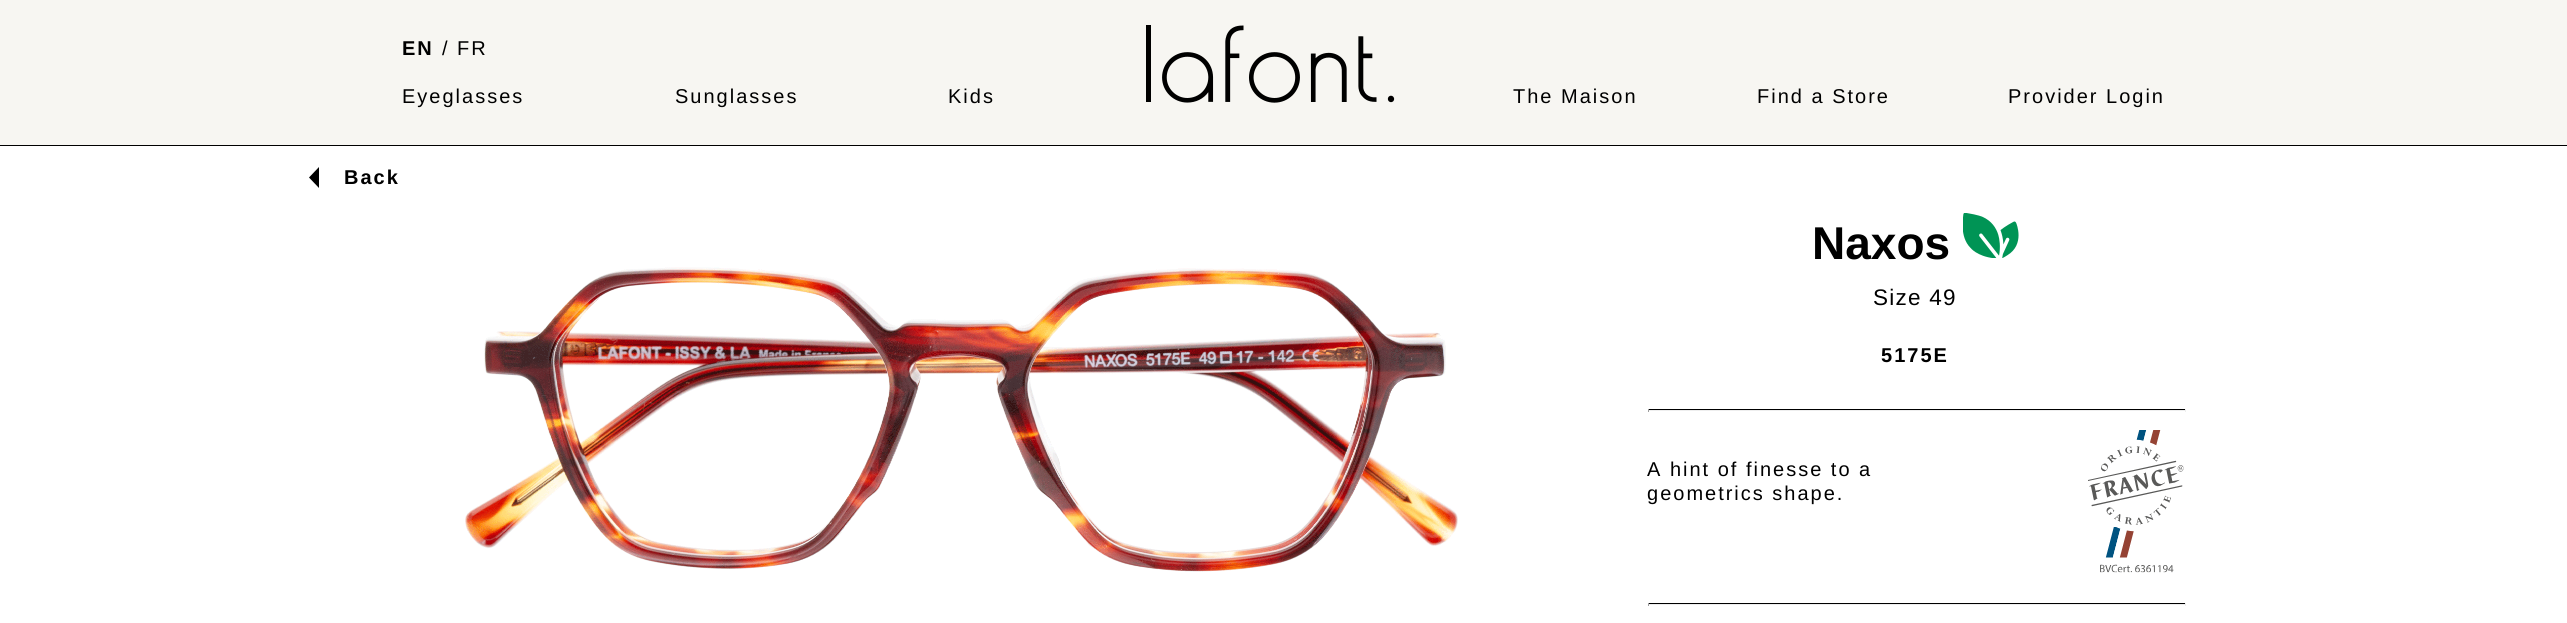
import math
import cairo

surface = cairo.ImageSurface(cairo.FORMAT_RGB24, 2567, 623)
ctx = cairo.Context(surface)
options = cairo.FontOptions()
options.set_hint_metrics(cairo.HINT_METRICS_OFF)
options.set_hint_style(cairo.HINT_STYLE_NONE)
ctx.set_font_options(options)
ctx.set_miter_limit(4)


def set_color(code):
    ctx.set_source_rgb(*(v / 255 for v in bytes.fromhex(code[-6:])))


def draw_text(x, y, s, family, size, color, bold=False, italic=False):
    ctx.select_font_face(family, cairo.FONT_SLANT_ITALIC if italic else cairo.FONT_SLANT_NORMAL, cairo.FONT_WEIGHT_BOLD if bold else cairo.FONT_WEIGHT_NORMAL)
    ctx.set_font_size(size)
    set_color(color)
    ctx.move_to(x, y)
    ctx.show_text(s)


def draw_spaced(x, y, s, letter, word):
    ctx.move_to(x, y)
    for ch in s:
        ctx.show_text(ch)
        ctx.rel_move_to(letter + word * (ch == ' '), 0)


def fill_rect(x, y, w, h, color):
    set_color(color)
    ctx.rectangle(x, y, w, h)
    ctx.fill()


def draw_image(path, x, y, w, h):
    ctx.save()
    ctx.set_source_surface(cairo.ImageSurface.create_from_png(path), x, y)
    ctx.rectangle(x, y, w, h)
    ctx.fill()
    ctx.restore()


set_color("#ffffff")
ctx.paint()
fill_rect(0, 0, 2567, 145, "#f7f6f2")
fill_rect(0, 145, 2567, 1, "#000000")
ctx.select_font_face("Liberation Sans", cairo.FONT_SLANT_NORMAL, cairo.FONT_WEIGHT_BOLD)
ctx.set_font_size(20)
draw_spaced(402, 55, "EN", 2, 0)
ctx.select_font_face("Liberation Sans")
draw_spaced(442, 55, "/ FR", 2, 0)
draw_spaced(402, 103, "Eyeglasses", 2, 0)
draw_spaced(675, 103, "Sunglasses", 2, 0)
draw_spaced(948, 103, "Kids", 2, 0)
draw_image("assets/img1.png", 1146, 25, 249, 78)
draw_spaced(1513, 103, "The Maison", 2, 0)
draw_spaced(1757, 103, "Find a Store", 2, 0)
draw_spaced(2008, 103, "Provider Login", 2, 0)
ctx.new_path()
ctx.move_to(319, 188)
ctx.line_to(309, 177.5)
ctx.line_to(319, 167)
ctx.close_path()
ctx.fill()
ctx.select_font_face("Liberation Sans", cairo.FONT_SLANT_NORMAL, cairo.FONT_WEIGHT_BOLD)
draw_spaced(344, 184, "Back", 2, 0)
draw_image("assets/img2.png", 465, 267, 993, 305)
draw_text(1812, 259, "Naxos", "Liberation Sans", 46, "#000000", bold=True)
draw_image("assets/img3.png", 1963, 213, 56, 45)
ctx.select_font_face("Liberation Sans")
ctx.set_font_size(22.5)
draw_spaced(1873, 305, "Size 49", 1.25, 0)
ctx.select_font_face("Liberation Sans", cairo.FONT_SLANT_NORMAL, cairo.FONT_WEIGHT_BOLD)
ctx.set_font_size(20)
draw_spaced(1881, 362, "5175E", 2, 0)
fill_rect(1648, 409, 538, 1, "#000000")
fill_rect(2185, 409, 1, 3, "#eeeeee")
fill_rect(1648, 410, 538, 1, "#eeeeee")
fill_rect(1648, 409, 1, 3, "#9f9f9f")
ctx.select_font_face("Liberation Sans")
set_color("#000000")
draw_spaced(1647, 476, "A hint of finesse to a", 2, 0)
draw_spaced(1647, 500, "geometrics shape.", 2, 0)
draw_image("assets/img4.png", 2088, 430, 96, 143)
fill_rect(1648, 603, 538, 1, "#000000")
fill_rect(2185, 603, 1, 3, "#eeeeee")
fill_rect(1648, 604, 538, 1, "#eeeeee")
fill_rect(1648, 603, 1, 3, "#9f9f9f")
surface.write_to_png("output.png")
